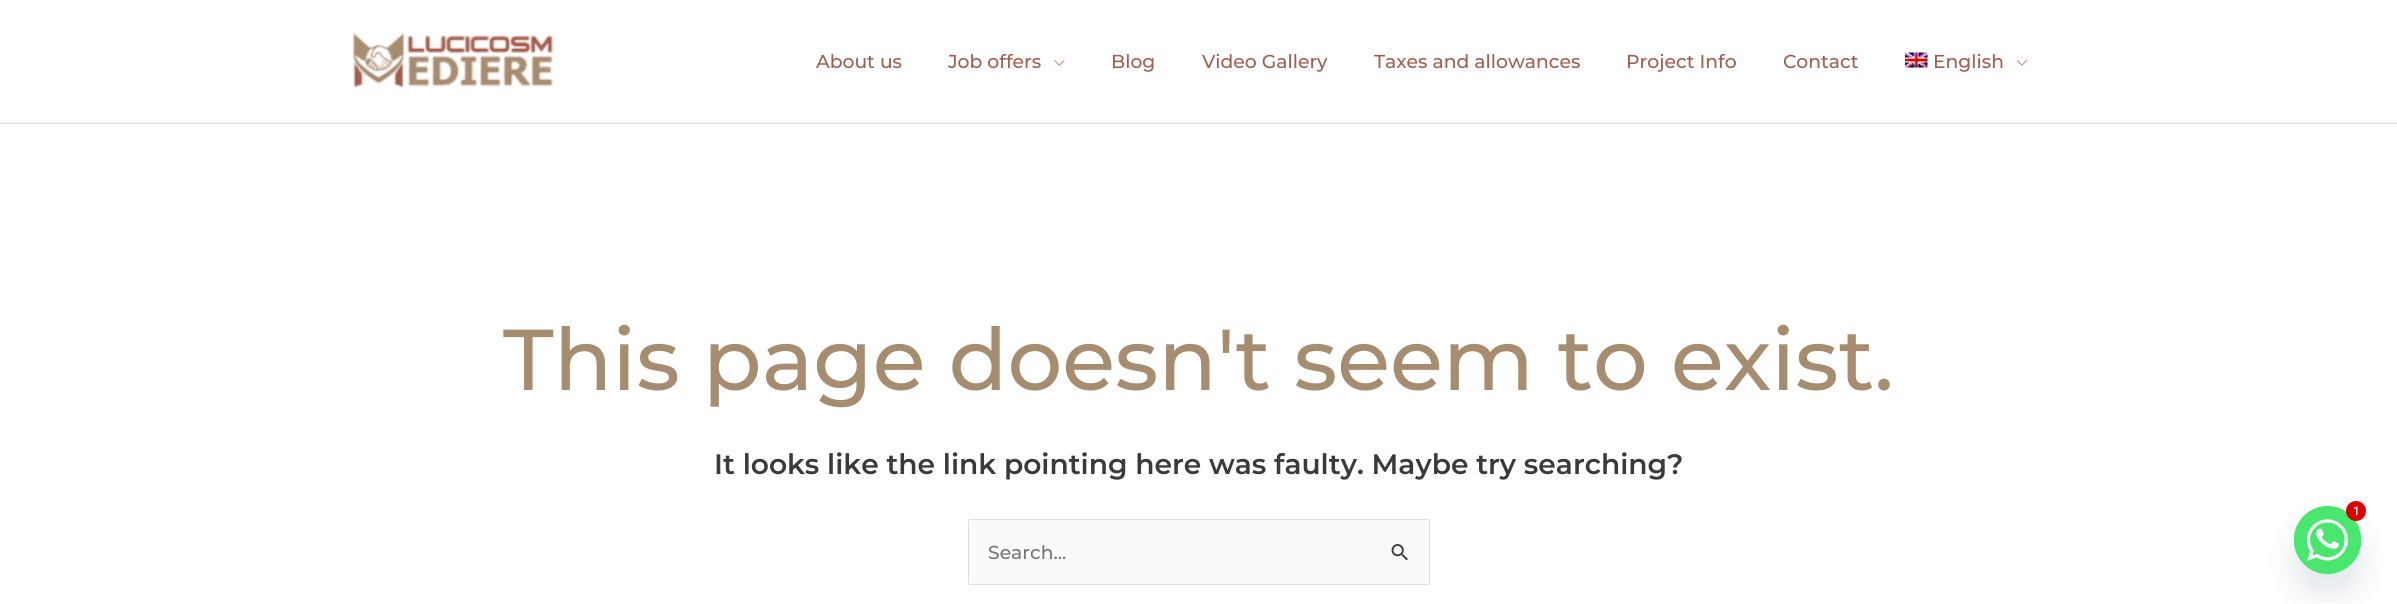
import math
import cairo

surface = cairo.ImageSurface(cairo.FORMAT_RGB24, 2397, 604)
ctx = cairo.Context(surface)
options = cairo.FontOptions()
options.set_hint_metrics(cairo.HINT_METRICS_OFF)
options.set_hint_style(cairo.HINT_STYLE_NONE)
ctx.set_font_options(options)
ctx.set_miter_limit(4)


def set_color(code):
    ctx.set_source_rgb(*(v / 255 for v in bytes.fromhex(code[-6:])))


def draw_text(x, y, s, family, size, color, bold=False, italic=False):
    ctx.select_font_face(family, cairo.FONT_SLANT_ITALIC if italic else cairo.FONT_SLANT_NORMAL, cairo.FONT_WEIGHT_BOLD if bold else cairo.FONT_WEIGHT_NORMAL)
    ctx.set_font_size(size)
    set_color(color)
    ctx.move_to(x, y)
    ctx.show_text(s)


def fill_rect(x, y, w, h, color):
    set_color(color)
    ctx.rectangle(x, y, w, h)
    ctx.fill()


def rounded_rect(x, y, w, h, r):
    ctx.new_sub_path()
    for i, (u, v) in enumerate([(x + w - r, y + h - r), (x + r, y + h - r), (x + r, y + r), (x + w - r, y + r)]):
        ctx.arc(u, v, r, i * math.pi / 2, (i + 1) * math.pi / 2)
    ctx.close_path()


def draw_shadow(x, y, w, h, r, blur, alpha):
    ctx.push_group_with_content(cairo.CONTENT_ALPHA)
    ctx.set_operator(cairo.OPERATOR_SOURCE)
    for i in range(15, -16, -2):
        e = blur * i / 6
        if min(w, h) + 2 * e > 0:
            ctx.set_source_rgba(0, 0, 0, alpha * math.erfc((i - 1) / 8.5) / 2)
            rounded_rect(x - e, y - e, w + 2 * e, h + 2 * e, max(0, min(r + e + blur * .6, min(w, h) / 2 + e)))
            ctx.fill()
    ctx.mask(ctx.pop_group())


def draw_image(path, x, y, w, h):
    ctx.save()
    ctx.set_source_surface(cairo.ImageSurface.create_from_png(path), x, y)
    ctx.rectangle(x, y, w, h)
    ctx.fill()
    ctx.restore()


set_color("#ffffff")
ctx.paint()
fill_rect(0, 123, 2397, 1, "#dddddd")
draw_image("assets/img1.png", 352, 32, 202, 56)
draw_text(816, 68, "About us", "Montserrat Medium", 18.75, "#a25d4c")
draw_text(948, 68, "Job offers", "Montserrat Medium", 18.75, "#a25d4c")
draw_image("assets/img2.png", 1054, 60, 11, 6)
draw_text(1111, 68, "Blog", "Montserrat Medium", 18.75, "#a25d4c")
draw_text(1202, 68, "Video Gallery", "Montserrat Medium", 18.75, "#a25d4c")
draw_text(1374, 68, "Taxes and allowances", "Montserrat Medium", 18.75, "#a25d4c")
draw_text(1626, 68, "Project Info", "Montserrat Medium", 18.75, "#a25d4c")
draw_text(1783, 68, "Contact", "Montserrat Medium", 18.75, "#a25d4c")
draw_image("assets/img3.png", 1905, 52, 23, 16)
draw_text(1933, 68, "English", "Montserrat Medium", 18.75, "#a25d4c")
draw_image("assets/img4.png", 2016, 60, 11, 6)
draw_text(503, 390, "This page doesn't seem to exist.", "Montserrat Medium", 86.25, "#a78d70")
draw_text(714, 474, "It looks like the link pointing here was faulty. Maybe try searching?", "Montserrat SemiBold", 28.1, "#3a3a3a")
set_color("#fafafa")
rounded_rect(968.5, 519.5, 461, 65, 2)
ctx.fill_preserve()
set_color("#dddddd")
ctx.set_line_width(1)
ctx.stroke()
draw_text(988, 559, "Search...", "Montserrat Medium", 18.75, "#757575")
draw_image("assets/img5.png", 1391, 544, 17, 17)
set_color("#49687e")
draw_shadow(2294, 526, 67, 68, 33.5, 15, 0.16)
set_color("#49e670")
rounded_rect(2294, 506, 67, 68, 33.5)
ctx.fill()
draw_image("assets/img6.png", 2294, 506, 67, 68)
set_color("#dd0000")
ctx.arc(2356, 511, 10, 0, 2 * math.pi)
ctx.fill()
draw_text(2353, 515, "1", "Roboto Medium", 12, "#ffffff")
surface.write_to_png("output.png")
